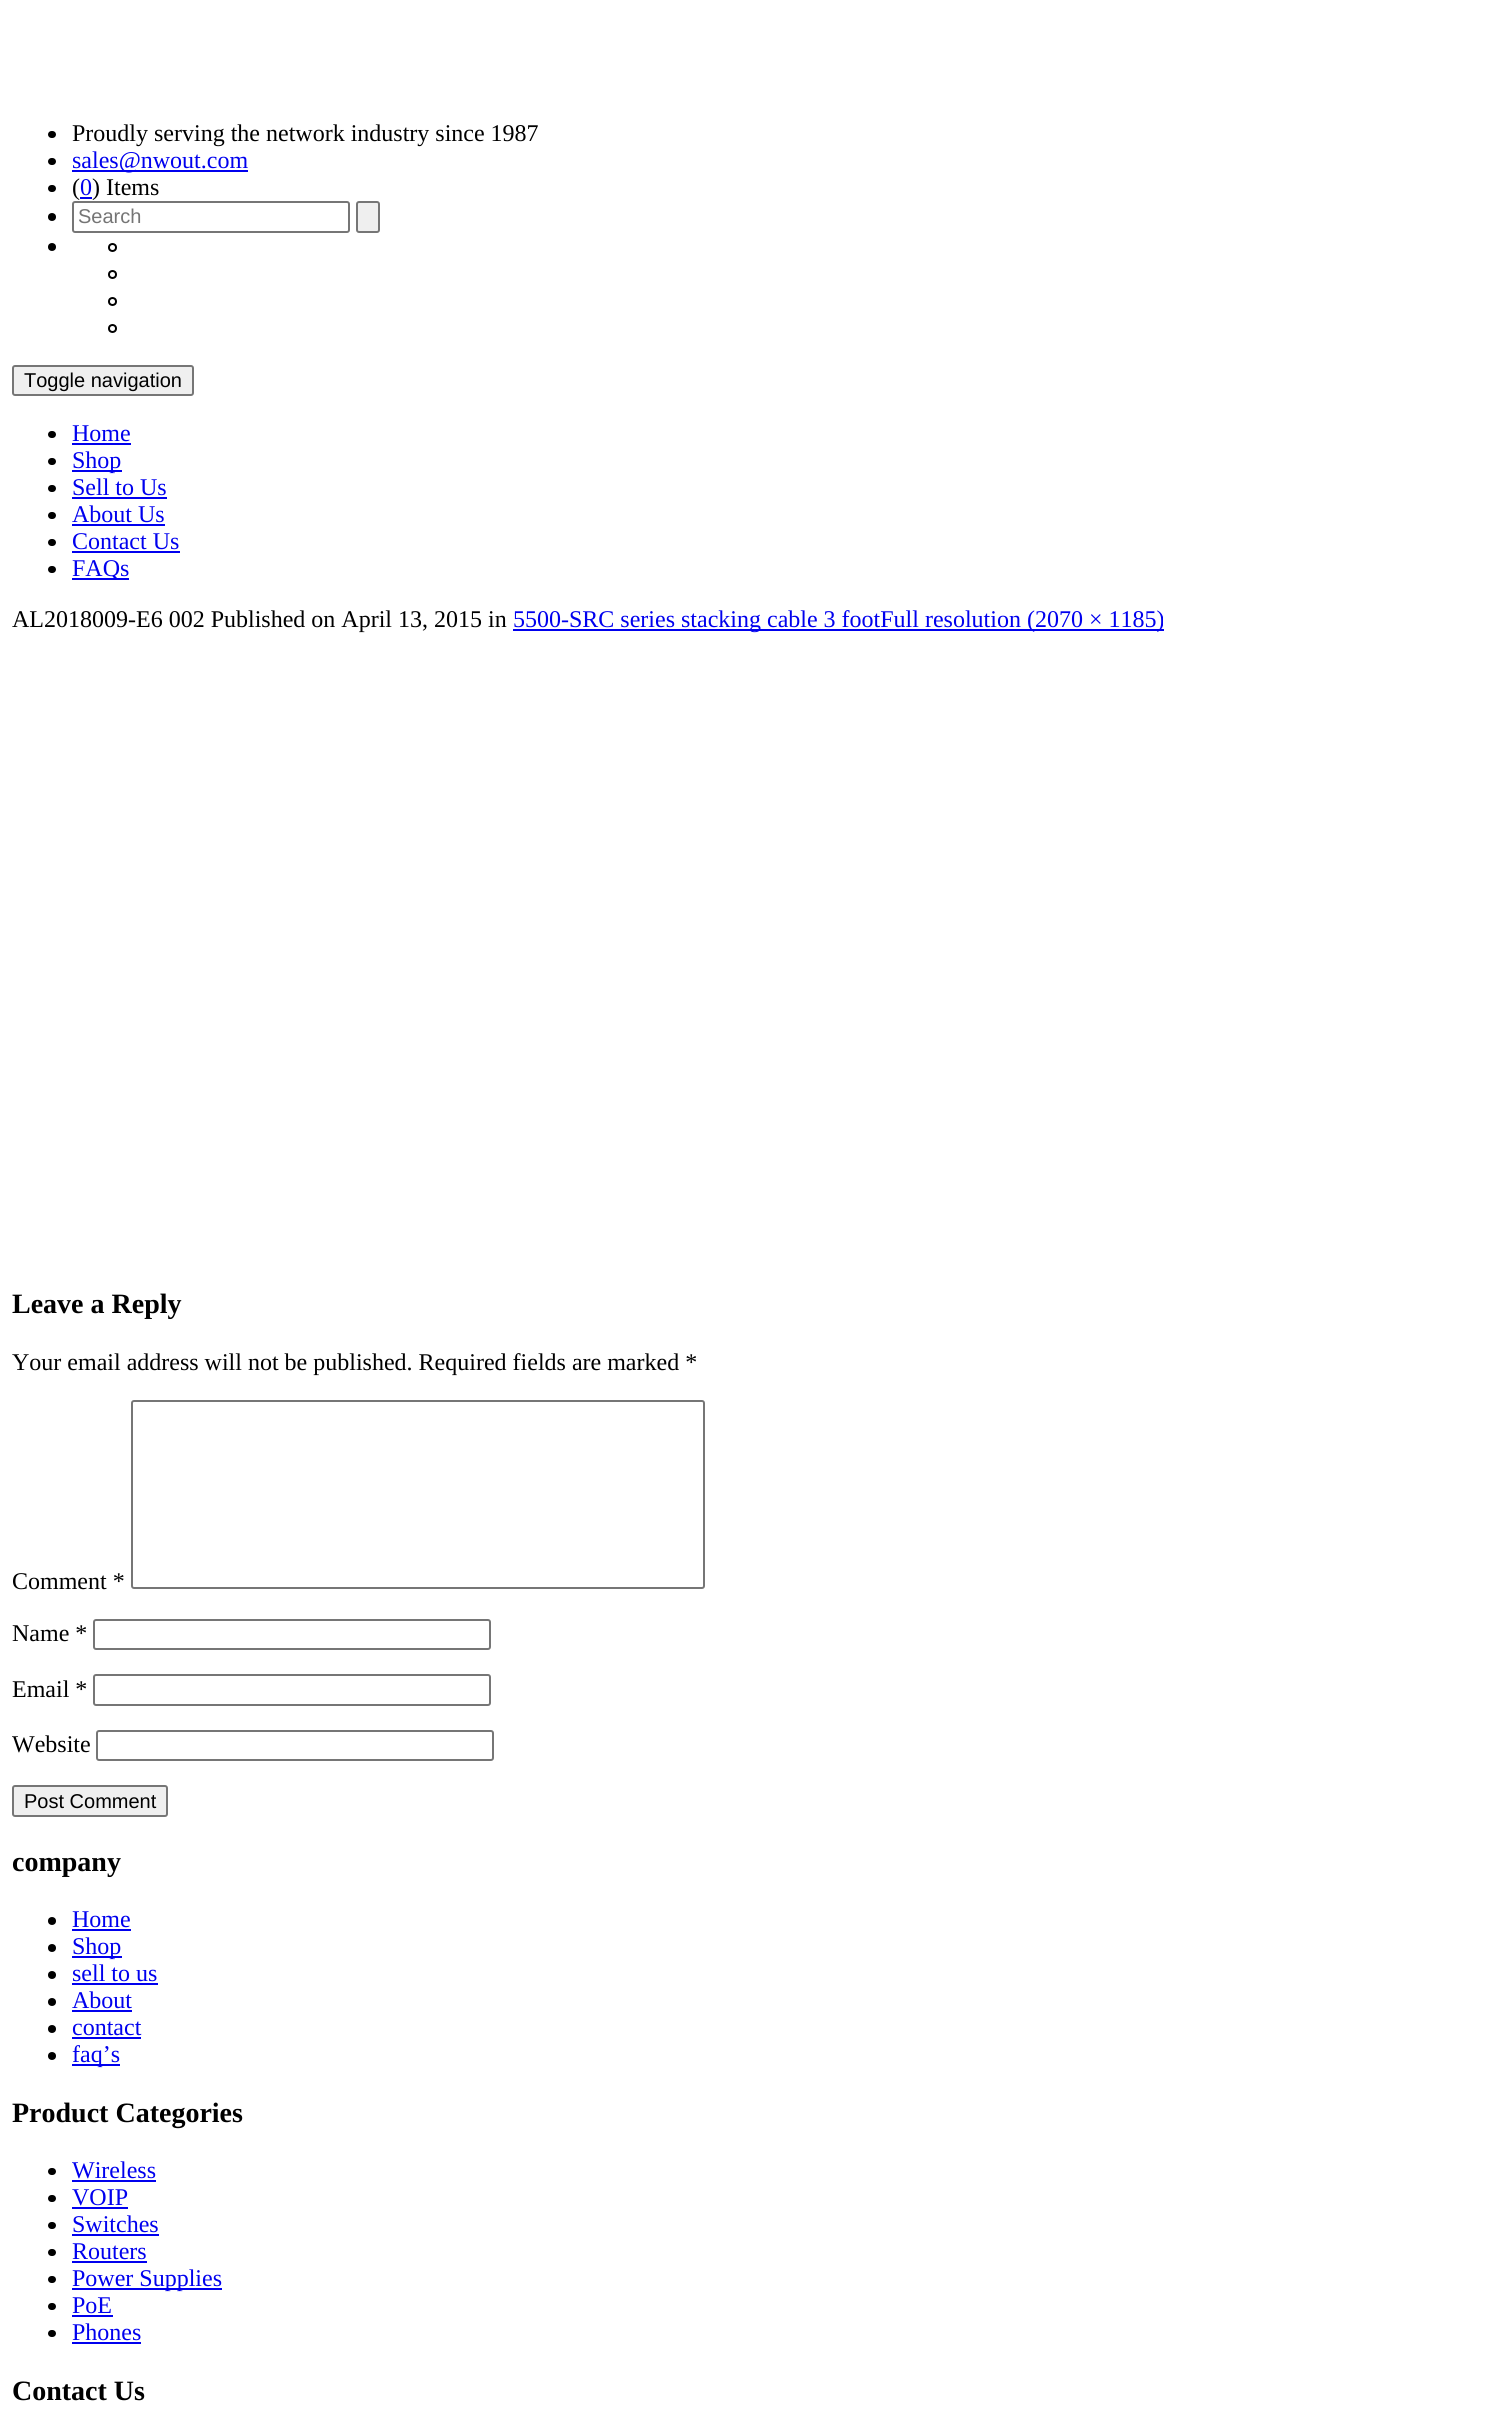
import math
import cairo

surface = cairo.ImageSurface(cairo.FORMAT_RGB24, 1493, 2409)
ctx = cairo.Context(surface)
options = cairo.FontOptions()
options.set_hint_metrics(cairo.HINT_METRICS_OFF)
options.set_hint_style(cairo.HINT_STYLE_NONE)
ctx.set_font_options(options)
ctx.set_miter_limit(4)


def set_color(code):
    ctx.set_source_rgb(*(v / 255 for v in bytes.fromhex(code[-6:])))


def draw_text(x, y, s, family, size, color, bold=False, italic=False):
    ctx.select_font_face(family, cairo.FONT_SLANT_ITALIC if italic else cairo.FONT_SLANT_NORMAL, cairo.FONT_WEIGHT_BOLD if bold else cairo.FONT_WEIGHT_NORMAL)
    ctx.set_font_size(size)
    set_color(color)
    ctx.move_to(x, y)
    ctx.show_text(s)


def fill_rect(x, y, w, h, color):
    set_color(color)
    ctx.rectangle(x, y, w, h)
    ctx.fill()


def rounded_rect(x, y, w, h, r):
    ctx.new_sub_path()
    for i, (u, v) in enumerate([(x + w - r, y + h - r), (x + r, y + h - r), (x + r, y + r), (x + w - r, y + r)]):
        ctx.arc(u, v, r, i * math.pi / 2, (i + 1) * math.pi / 2)
    ctx.close_path()


set_color("#ffffff")
ctx.paint()
set_color("#000000")
rounded_rect(48, 131, 8, 7, 3.5)
ctx.fill()
draw_text(72, 141, "Proudly serving the network industry since 1987", "Liberation Serif", 24, "#000000")
rounded_rect(48, 158, 8, 7, 3.5)
ctx.fill()
fill_rect(72, 170, 176, 2, "#0000ee")
draw_text(72, 168, "sales@nwout.com", "Liberation Serif", 24, "#0000ee")
set_color("#000000")
rounded_rect(48, 185, 8, 7, 3.5)
ctx.fill()
draw_text(72, 195, "(", "Liberation Serif", 24, "#000000")
fill_rect(80, 197, 12, 2, "#0000ee")
draw_text(80, 195, "0", "Liberation Serif", 24, "#0000ee")
draw_text(92, 195, ") Items", "Liberation Serif", 24, "#000000")
ctx.new_path()
ctx.arc(52, 217, 4, 0, 2 * math.pi)
ctx.fill()
rounded_rect(73, 202, 276, 30, 2)
set_color("#767676")
ctx.stroke()
draw_text(78, 223, "Search", "Liberation Sans", 20, "#757575")
set_color("#efefef")
rounded_rect(357, 202, 22, 30, 2)
ctx.fill_preserve()
set_color("#767676")
ctx.stroke()
set_color("#000000")
ctx.arc(52, 247, 4, 0, 2 * math.pi)
ctx.fill()
ctx.arc(112.5, 247.5, 3.5, 0, 2 * math.pi)
ctx.stroke()
ctx.arc(112.5, 274.5, 3.5, 0, 2 * math.pi)
ctx.stroke()
ctx.arc(112.5, 301.5, 3.5, 0, 2 * math.pi)
ctx.stroke()
ctx.arc(112.5, 328.5, 3.5, 0, 2 * math.pi)
ctx.stroke()
set_color("#efefef")
rounded_rect(13, 366, 180, 29, 2)
ctx.fill_preserve()
set_color("#767676")
ctx.stroke()
draw_text(24, 387, "Toggle navigation", "Liberation Sans", 20, "#000000")
rounded_rect(48, 431, 8, 7, 3.5)
ctx.fill()
draw_text(72, 441, "Home", "Liberation Serif", 24, "#0000ee")
fill_rect(72, 443, 59, 2, "#0000ee")
set_color("#000000")
rounded_rect(48, 458, 8, 7, 3.5)
ctx.fill()
fill_rect(72, 470, 50, 2, "#0000ee")
draw_text(72, 468, "Shop", "Liberation Serif", 24, "#0000ee")
set_color("#000000")
rounded_rect(48, 485, 8, 7, 3.5)
ctx.fill()
draw_text(72, 495, "Sell to Us", "Liberation Serif", 24, "#0000ee")
fill_rect(72, 497, 95, 2, "#0000ee")
set_color("#000000")
rounded_rect(48, 512, 8, 7, 3.5)
ctx.fill()
draw_text(72, 522, "About Us", "Liberation Serif", 24, "#0000ee")
fill_rect(72, 524, 93, 2, "#0000ee")
set_color("#000000")
rounded_rect(48, 539, 8, 7, 3.5)
ctx.fill()
draw_text(72, 549, "Contact Us", "Liberation Serif", 24, "#0000ee")
fill_rect(72, 551, 108, 2, "#0000ee")
set_color("#000000")
rounded_rect(48, 566, 8, 7, 3.5)
ctx.fill()
fill_rect(72, 578, 57, 2, "#0000ee")
draw_text(72, 576, "FAQs", "Liberation Serif", 24, "#0000ee")
draw_text(12, 627, "AL2018009-E6 002 Published on April 13, 2015 in", "Liberation Serif", 24, "#000000")
fill_rect(513, 629, 651, 2, "#0000ee")
draw_text(513, 627, "5500-SRC series stacking cable 3 footFull resolution (2070 × 1185)", "Liberation Serif", 24, "#0000ee")
draw_text(12, 1313, "Leave a Reply", "Liberation Serif", 28, "#000000", bold=True)
draw_text(12, 1370, "Your email address will not be published. Required fields are marked *", "Liberation Serif", 24, "#000000")
draw_text(12, 1589, "Comment *", "Liberation Serif", 24, "#000000")
rounded_rect(132, 1401, 572, 187, 2)
set_color("#767676")
ctx.stroke()
draw_text(12, 1641, "Name *", "Liberation Serif", 24, "#000000")
rounded_rect(94, 1620, 396, 29, 2)
set_color("#767676")
ctx.stroke()
draw_text(12, 1697, "Email *", "Liberation Serif", 24, "#000000")
rounded_rect(94, 1675, 396, 30, 2)
set_color("#767676")
ctx.stroke()
draw_text(12, 1752, "Website", "Liberation Serif", 24, "#000000")
rounded_rect(97, 1731, 396, 29, 2)
set_color("#767676")
ctx.stroke()
set_color("#efefef")
rounded_rect(13, 1786, 154, 30, 2)
ctx.fill_preserve()
set_color("#767676")
ctx.stroke()
draw_text(24, 1808, "Post Comment", "Liberation Sans", 20, "#000000")
draw_text(12, 1871, "company", "Liberation Serif", 28, "#000000", bold=True)
ctx.new_path()
ctx.arc(52, 1921, 4, 0, 2 * math.pi)
ctx.fill()
draw_text(72, 1927, "Home", "Liberation Serif", 24, "#0000ee")
fill_rect(72, 1929, 59, 2, "#0000ee")
set_color("#000000")
ctx.new_path()
ctx.arc(52, 1948, 4, 0, 2 * math.pi)
ctx.fill()
fill_rect(72, 1956, 50, 2, "#0000ee")
draw_text(72, 1954, "Shop", "Liberation Serif", 24, "#0000ee")
set_color("#000000")
ctx.new_path()
ctx.arc(52, 1975, 4, 0, 2 * math.pi)
ctx.fill()
draw_text(72, 1981, "sell to us", "Liberation Serif", 24, "#0000ee")
fill_rect(72, 1983, 86, 2, "#0000ee")
set_color("#000000")
ctx.new_path()
ctx.arc(52, 2002, 4, 0, 2 * math.pi)
ctx.fill()
draw_text(72, 2008, "About", "Liberation Serif", 24, "#0000ee")
fill_rect(72, 2010, 60, 2, "#0000ee")
set_color("#000000")
ctx.new_path()
ctx.arc(52, 2029, 4, 0, 2 * math.pi)
ctx.fill()
draw_text(72, 2035, "contact", "Liberation Serif", 24, "#0000ee")
fill_rect(72, 2037, 69, 2, "#0000ee")
set_color("#000000")
ctx.new_path()
ctx.arc(52, 2056, 4, 0, 2 * math.pi)
ctx.fill()
fill_rect(72, 2064, 48, 2, "#0000ee")
draw_text(72, 2062, "faq’s", "Liberation Serif", 24, "#0000ee")
draw_text(12, 2122, "Product Categories", "Liberation Serif", 28, "#000000", bold=True)
rounded_rect(48, 2168, 8, 7, 3.5)
ctx.fill()
draw_text(72, 2178, "Wireless", "Liberation Serif", 24, "#0000ee")
fill_rect(72, 2180, 84, 2, "#0000ee")
set_color("#000000")
rounded_rect(48, 2195, 8, 7, 3.5)
ctx.fill()
draw_text(72, 2205, "VOIP", "Liberation Serif", 24, "#0000ee")
fill_rect(72, 2207, 56, 2, "#0000ee")
set_color("#000000")
rounded_rect(48, 2222, 8, 7, 3.5)
ctx.fill()
draw_text(72, 2232, "Switches", "Liberation Serif", 24, "#0000ee")
fill_rect(72, 2234, 87, 2, "#0000ee")
set_color("#000000")
rounded_rect(48, 2249, 8, 7, 3.5)
ctx.fill()
draw_text(72, 2259, "Routers", "Liberation Serif", 24, "#0000ee")
fill_rect(72, 2261, 75, 2, "#0000ee")
set_color("#000000")
rounded_rect(48, 2276, 8, 7, 3.5)
ctx.fill()
fill_rect(72, 2288, 150, 2, "#0000ee")
draw_text(72, 2286, "Power Supplies", "Liberation Serif", 24, "#0000ee")
set_color("#000000")
rounded_rect(48, 2303, 8, 7, 3.5)
ctx.fill()
draw_text(72, 2313, "PoE", "Liberation Serif", 24, "#0000ee")
fill_rect(72, 2315, 41, 2, "#0000ee")
set_color("#000000")
rounded_rect(48, 2330, 8, 7, 3.5)
ctx.fill()
draw_text(72, 2340, "Phones", "Liberation Serif", 24, "#0000ee")
fill_rect(72, 2342, 69, 2, "#0000ee")
draw_text(12, 2400, "Contact Us", "Liberation Serif", 28, "#000000", bold=True)
surface.write_to_png("output.png")
